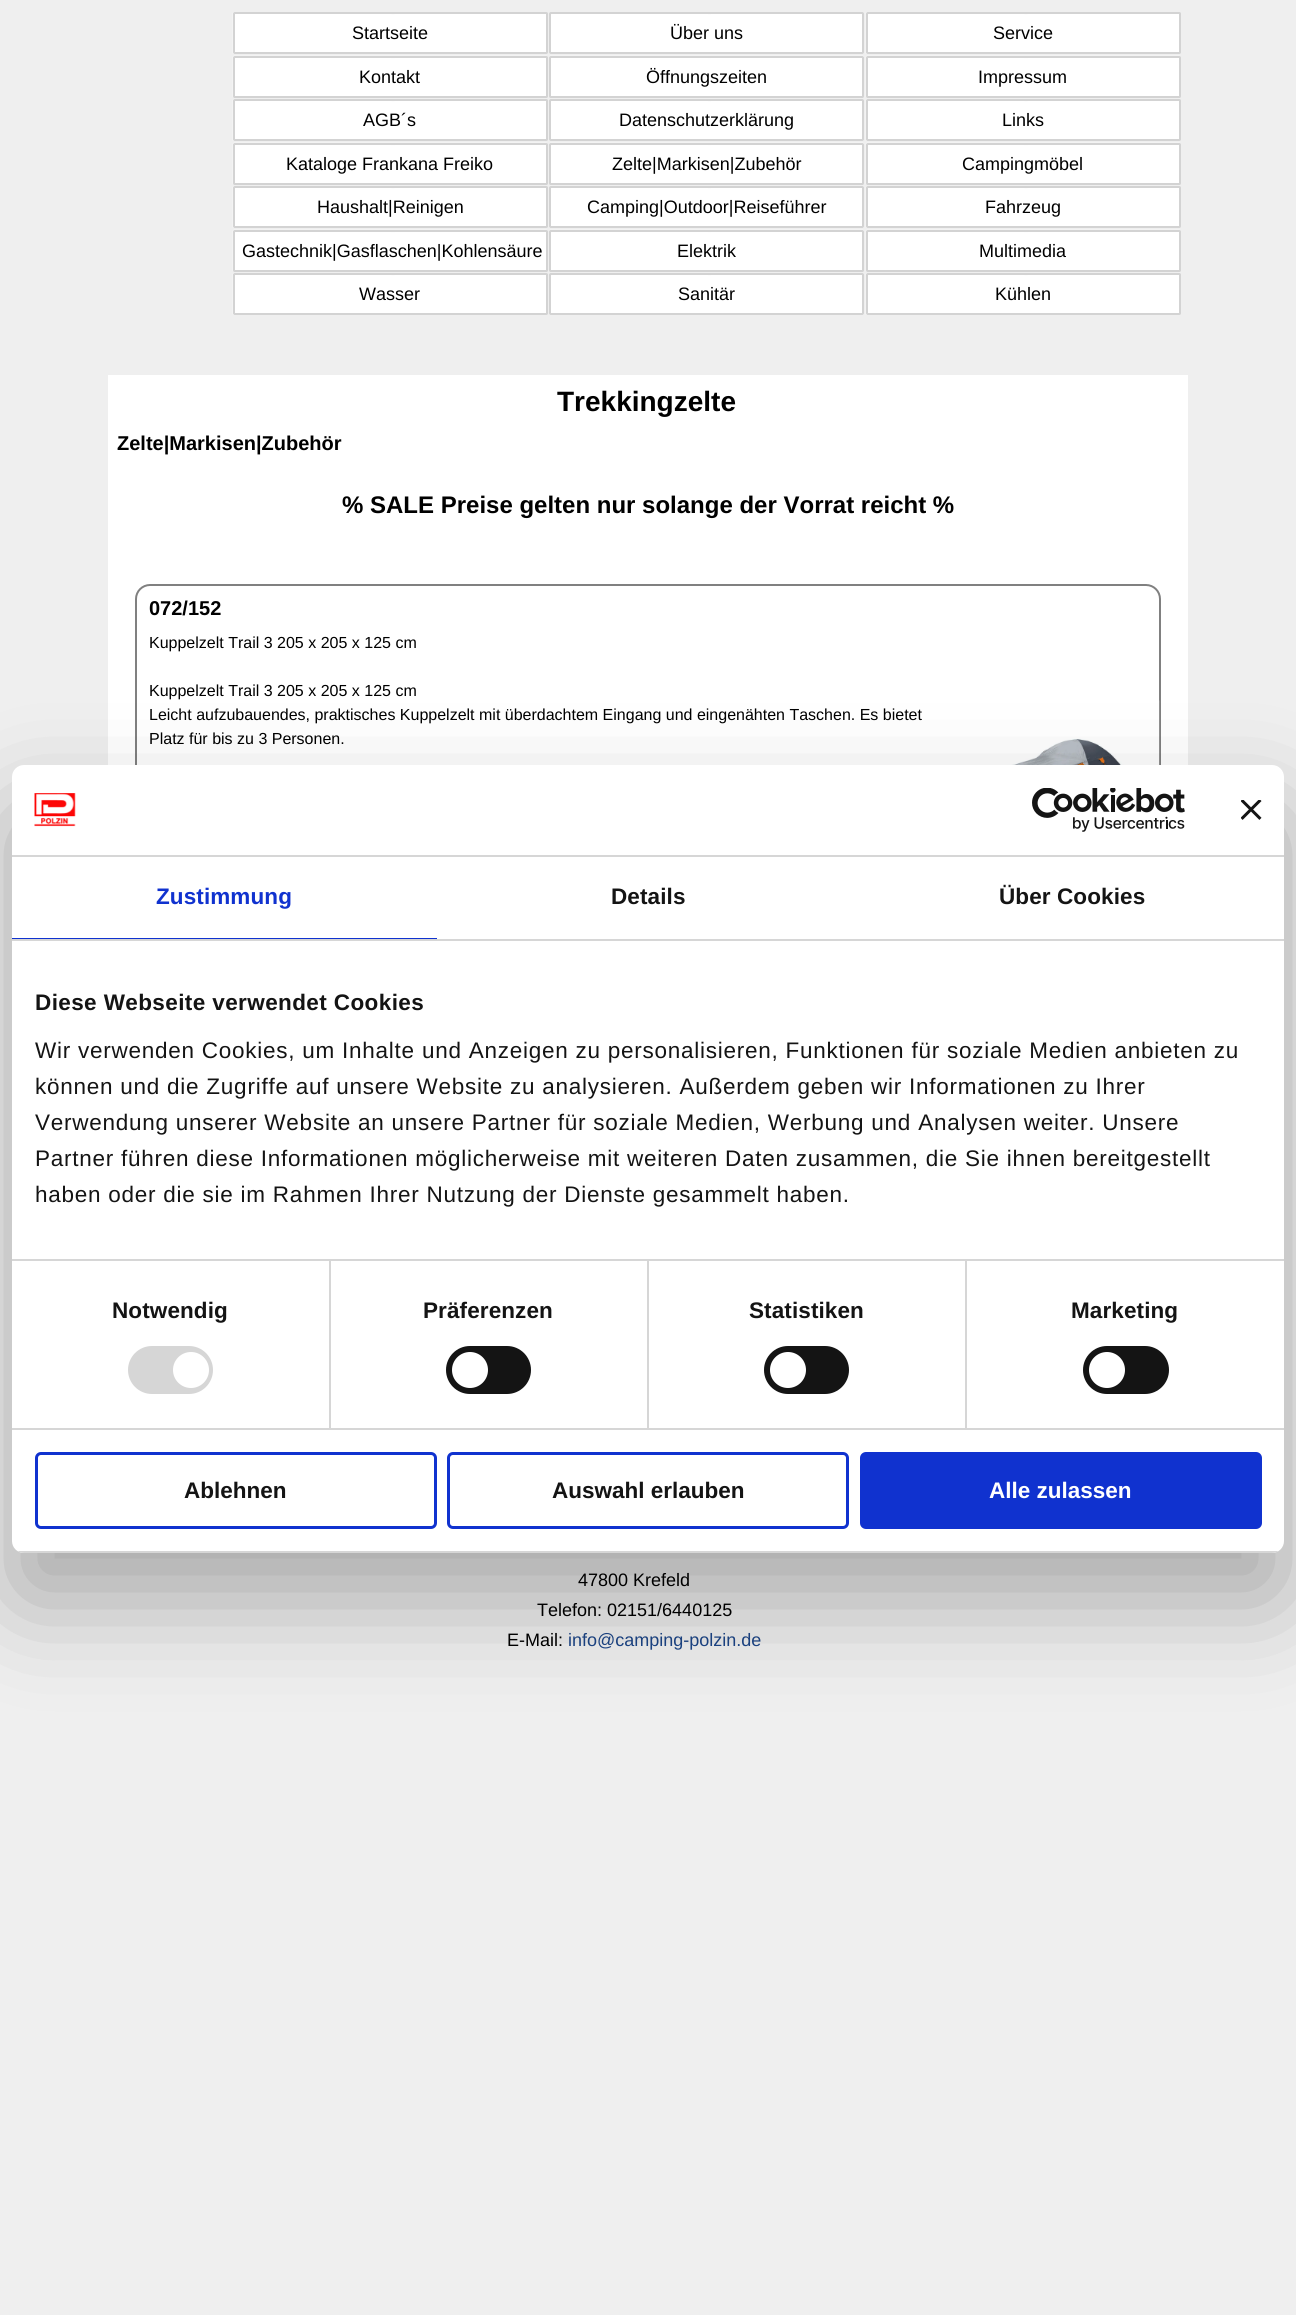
import math
import cairo

surface = cairo.ImageSurface(cairo.FORMAT_RGB24, 1296, 2315)
ctx = cairo.Context(surface)
options = cairo.FontOptions()
options.set_hint_metrics(cairo.HINT_METRICS_OFF)
options.set_hint_style(cairo.HINT_STYLE_NONE)
ctx.set_font_options(options)
ctx.set_miter_limit(4)


def set_color(code):
    ctx.set_source_rgb(*(v / 255 for v in bytes.fromhex(code[-6:])))


def draw_text(x, y, s, family, size, color, bold=False, italic=False):
    ctx.select_font_face(family, cairo.FONT_SLANT_ITALIC if italic else cairo.FONT_SLANT_NORMAL, cairo.FONT_WEIGHT_BOLD if bold else cairo.FONT_WEIGHT_NORMAL)
    ctx.set_font_size(size)
    set_color(color)
    ctx.move_to(x, y)
    ctx.show_text(s)


def draw_spaced(x, y, s, letter, word):
    ctx.move_to(x, y)
    for ch in s:
        ctx.show_text(ch)
        ctx.rel_move_to(letter + word * (ch == ' '), 0)


def fill_rect(x, y, w, h, color):
    set_color(color)
    ctx.rectangle(x, y, w, h)
    ctx.fill()


def rounded_rect(x, y, w, h, r):
    ctx.new_sub_path()
    for i, (u, v) in enumerate([(x + w - r, y + h - r), (x + r, y + h - r), (x + r, y + r), (x + w - r, y + r)]):
        ctx.arc(u, v, r, i * math.pi / 2, (i + 1) * math.pi / 2)
    ctx.close_path()


def draw_shadow(x, y, w, h, r, blur, alpha):
    ctx.push_group_with_content(cairo.CONTENT_ALPHA)
    ctx.set_operator(cairo.OPERATOR_SOURCE)
    for i in range(15, -16, -2):
        e = blur * i / 6
        if min(w, h) + 2 * e > 0:
            ctx.set_source_rgba(0, 0, 0, alpha * math.erfc((i - 1) / 8.5) / 2)
            rounded_rect(x - e, y - e, w + 2 * e, h + 2 * e, max(0, min(r + e + blur * .6, min(w, h) / 2 + e)))
            ctx.fill()
    ctx.mask(ctx.pop_group())


def draw_image(path, x, y, w, h):
    ctx.save()
    ctx.set_source_surface(cairo.ImageSurface.create_from_png(path), x, y)
    ctx.rectangle(x, y, w, h)
    ctx.fill()
    ctx.restore()


set_color("#efefef")
ctx.paint()
draw_image("assets/img1.png", 232, 12, 316, 42)
rounded_rect(234, 13, 313, 40, 0.5)
set_color("#d3d3d3")
ctx.stroke()
draw_text(352, 39, "Startseite", "Liberation Sans", 18, "#000000")
draw_image("assets/img2.png", 549, 12, 315, 42)
rounded_rect(550, 13, 313, 40, 0.5)
set_color("#d3d3d3")
ctx.stroke()
draw_text(670, 39, "Über uns", "Liberation Sans", 18, "#000000")
draw_image("assets/img1.png", 865, 12, 316, 42)
rounded_rect(867, 13, 313, 40, 0.5)
set_color("#d3d3d3")
ctx.stroke()
draw_text(993, 39, "Service", "Liberation Sans", 18, "#000000")
draw_image("assets/img3.png", 232, 55, 316, 43)
rounded_rect(234, 57, 313, 40, 0.5)
set_color("#d3d3d3")
ctx.stroke()
draw_text(359, 83, "Kontakt", "Liberation Sans", 18, "#000000")
draw_image("assets/img4.png", 549, 55, 315, 43)
rounded_rect(550, 57, 313, 40, 0.5)
set_color("#d3d3d3")
ctx.stroke()
draw_text(646, 83, "Öffnungszeiten", "Liberation Sans", 18, "#000000")
draw_image("assets/img3.png", 865, 55, 316, 43)
rounded_rect(867, 57, 313, 40, 0.5)
set_color("#d3d3d3")
ctx.stroke()
draw_text(978, 83, "Impressum", "Liberation Sans", 18, "#000000")
draw_image("assets/img1.png", 232, 99, 316, 42)
rounded_rect(234, 100, 313, 40, 0.5)
set_color("#d3d3d3")
ctx.stroke()
draw_text(363, 126, "AGB´s", "Liberation Sans", 18, "#000000")
draw_image("assets/img2.png", 549, 99, 315, 42)
rounded_rect(550, 100, 313, 40, 0.5)
set_color("#d3d3d3")
ctx.stroke()
draw_text(619, 126, "Datenschutzerklärung", "Liberation Sans", 18, "#000000")
draw_image("assets/img1.png", 865, 99, 316, 42)
rounded_rect(867, 100, 313, 40, 0.5)
set_color("#d3d3d3")
ctx.stroke()
draw_text(1002, 126, "Links", "Liberation Sans", 18, "#000000")
draw_image("assets/img3.png", 232, 142, 316, 43)
rounded_rect(234, 144, 313, 40, 0.5)
set_color("#d3d3d3")
ctx.stroke()
draw_text(286, 170, "Kataloge Frankana Freiko", "Liberation Sans", 18, "#000000")
draw_image("assets/img4.png", 549, 142, 315, 43)
rounded_rect(550, 144, 313, 40, 0.5)
set_color("#d3d3d3")
ctx.stroke()
draw_text(612, 170, "Zelte|Markisen|Zubehör", "Liberation Sans", 18, "#000000")
draw_image("assets/img3.png", 865, 142, 316, 43)
rounded_rect(867, 144, 313, 40, 0.5)
set_color("#d3d3d3")
ctx.stroke()
draw_text(962, 170, "Campingmöbel", "Liberation Sans", 18, "#000000")
draw_image("assets/img1.png", 232, 186, 316, 42)
rounded_rect(234, 187, 313, 40, 0.5)
set_color("#d3d3d3")
ctx.stroke()
draw_text(317, 213, "Haushalt|Reinigen", "Liberation Sans", 18, "#000000")
draw_image("assets/img2.png", 549, 186, 315, 42)
rounded_rect(550, 187, 313, 40, 0.5)
set_color("#d3d3d3")
ctx.stroke()
draw_text(587, 213, "Camping|Outdoor|Reiseführer", "Liberation Sans", 18, "#000000")
draw_image("assets/img1.png", 865, 186, 316, 42)
rounded_rect(867, 187, 313, 40, 0.5)
set_color("#d3d3d3")
ctx.stroke()
draw_text(985, 213, "Fahrzeug", "Liberation Sans", 18, "#000000")
draw_image("assets/img3.png", 232, 229, 316, 43)
rounded_rect(234, 231, 313, 40, 0.5)
set_color("#d3d3d3")
ctx.stroke()
draw_text(242, 257, "Gastechnik|Gasflaschen|Kohlensäure", "Liberation Sans", 18, "#000000")
draw_image("assets/img4.png", 549, 229, 315, 43)
rounded_rect(550, 231, 313, 40, 0.5)
set_color("#d3d3d3")
ctx.stroke()
draw_text(677, 257, "Elektrik", "Liberation Sans", 18, "#000000")
draw_image("assets/img3.png", 865, 229, 316, 43)
rounded_rect(867, 231, 313, 40, 0.5)
set_color("#d3d3d3")
ctx.stroke()
draw_text(979, 257, "Multimedia", "Liberation Sans", 18, "#000000")
draw_image("assets/img1.png", 232, 273, 316, 42)
rounded_rect(234, 274, 313, 40, 0.5)
set_color("#d3d3d3")
ctx.stroke()
draw_text(359, 300, "Wasser", "Liberation Sans", 18, "#000000")
draw_image("assets/img2.png", 549, 273, 315, 42)
rounded_rect(550, 274, 313, 40, 0.5)
set_color("#d3d3d3")
ctx.stroke()
draw_text(678, 300, "Sanitär", "Liberation Sans", 18, "#000000")
draw_image("assets/img1.png", 865, 273, 316, 42)
rounded_rect(867, 274, 313, 40, 0.5)
set_color("#d3d3d3")
ctx.stroke()
draw_text(995, 300, "Kühlen", "Liberation Sans", 18, "#000000")
fill_rect(108, 375, 1080, 390, "#ffffff")
draw_text(557, 411, "Trekkingzelte", "Liberation Sans", 28, "#000000", bold=True)
draw_text(117, 450, "Zelte|Markisen|Zubehör", "Liberation Sans", 20, "#000000", bold=True)
draw_text(342, 513, "% SALE Preise gelten nur solange der Vorrat reicht %", "Liberation Sans", 24, "#000000", bold=True)
rounded_rect(136, 585, 1024, 436, 14)
set_color("#808080")
ctx.stroke()
draw_text(149, 615, "072/152", "Liberation Sans", 20, "#000000", bold=True)
draw_text(149, 648, "Kuppelzelt Trail 3 205 x 205 x 125 cm", "Liberation Sans", 16, "#000000")
draw_text(149, 696, "Kuppelzelt Trail 3 205 x 205 x 125 cm", "Liberation Sans", 16, "#000000")
draw_text(149, 720, "Leicht aufzubauendes, praktisches Kuppelzelt mit überdachtem Eingang und eingenähten Taschen. Es bietet", "Liberation Sans", 16, "#000000")
draw_text(149, 744, "Platz für bis zu 3 Personen.", "Liberation Sans", 16, "#000000")
draw_image("assets/img5.png", 957, 700, 203, 65)
draw_text(578, 1586, "47800 Krefeld", "Liberation Sans", 18, "#000000")
draw_text(537, 1616, "Telefon: 02151/6440125", "Liberation Sans", 18, "#000000")
draw_text(507, 1646, "E-Mail:", "Liberation Sans", 18, "#000000")
draw_text(568, 1646, "info@camping-polzin.de", "Liberation Sans", 18, "#1c4587")
set_color("#000000")
draw_shadow(12, 813, 1272, 788, 12, 51, 0.3)
set_color("#ffffff")
rounded_rect(12, 765, 1272, 788, 12)
ctx.fill()
fill_rect(12, 855, 1272, 2, "#d6d6d6")
draw_image("assets/img6.png", 34, 793, 42, 34)
draw_image("assets/img7.png", 1032, 788, 153, 44)
draw_image("assets/img8.png", 1241, 800, 21, 20)
fill_rect(12, 939, 1272, 2, "#d6d6d6")
fill_rect(12, 938, 425, 1, "#1032cf")
ctx.select_font_face("Liberation Sans", cairo.FONT_SLANT_NORMAL, cairo.FONT_WEIGHT_BOLD)
ctx.set_font_size(22.5)
draw_spaced(156, 904, "Zustimmung", 0.1, 0)
set_color("#141414")
draw_spaced(611, 904, "Details", 0.1, 0)
draw_spaced(999, 904, "Über Cookies", 0.1, 0)
fill_rect(329, 1260, 2, 168, "#d6d6d6")
fill_rect(647, 1260, 2, 168, "#d6d6d6")
fill_rect(965, 1260, 2, 168, "#d6d6d6")
fill_rect(12, 1259, 1272, 2, "#d6d6d6")
set_color("#141414")
draw_spaced(35, 1010, "Diese Webseite verwendet Cookies", 0.4, 0)
ctx.select_font_face("Liberation Sans")
draw_spaced(35, 1058, "Wir verwenden Cookies, um Inhalte und Anzeigen zu personalisieren, Funktionen für soziale Medien anbieten zu", 0.75, 0)
draw_spaced(35, 1094, "können und die Zugriffe auf unsere Website zu analysieren. Außerdem geben wir Informationen zu Ihrer", 0.75, 0)
draw_spaced(35, 1130, "Verwendung unserer Website an unsere Partner für soziale Medien, Werbung und Analysen weiter. Unsere", 0.75, 0)
draw_spaced(35, 1166, "Partner führen diese Informationen möglicherweise mit weiteren Daten zusammen, die Sie ihnen bereitgestellt", 0.75, 0)
draw_spaced(35, 1202, "haben oder die sie im Rahmen Ihrer Nutzung der Dienste gesammelt haben.", 0.75, 0)
fill_rect(12, 1428, 1272, 2, "#d6d6d6")
ctx.select_font_face("Liberation Sans", cairo.FONT_SLANT_NORMAL, cairo.FONT_WEIGHT_BOLD)
set_color("#141414")
draw_spaced(112, 1318, "Notwendig", 0.1, 0)
set_color("#d6d6d6")
rounded_rect(128, 1346, 85, 48, 24)
ctx.fill()
set_color("#ffffff")
ctx.arc(191, 1370, 18, 0, 2 * math.pi)
ctx.fill()
set_color("#141414")
draw_spaced(423, 1318, "Präferenzen", 0.1, 0)
rounded_rect(446, 1346, 85, 48, 24)
ctx.fill()
set_color("#ffffff")
ctx.arc(470, 1370, 18, 0, 2 * math.pi)
ctx.fill()
set_color("#141414")
draw_spaced(749, 1318, "Statistiken", 0.1, 0)
rounded_rect(764, 1346, 85, 48, 24)
ctx.fill()
set_color("#ffffff")
ctx.arc(788, 1370, 18, 0, 2 * math.pi)
ctx.fill()
set_color("#141414")
draw_spaced(1071, 1318, "Marketing", 0.1, 0)
rounded_rect(1083, 1346, 86, 48, 24)
ctx.fill()
set_color("#ffffff")
ctx.arc(1107, 1370, 18, 0, 2 * math.pi)
ctx.fill()
ctx.save()
rounded_rect(12, 765, 1272, 788, 12)
ctx.clip()
fill_rect(12, 1551, 1272, 2, "#d6d6d6")
ctx.restore()
rounded_rect(36.5, 1453.5, 399, 74, 4.5)
set_color("#1032cf")
ctx.set_line_width(3)
ctx.stroke()
draw_text(184, 1498, "Ablehnen", "Liberation Sans", 22.5, "#141414", bold=True)
rounded_rect(448.5, 1453.5, 399, 74, 4.5)
set_color("#1032cf")
ctx.stroke()
draw_text(552, 1498, "Auswahl erlauben", "Liberation Sans", 22.5, "#141414", bold=True)
set_color("#1032cf")
rounded_rect(861.5, 1453.5, 399, 74, 4.5)
ctx.fill_preserve()
ctx.stroke()
draw_text(989, 1498, "Alle zulassen", "Liberation Sans", 22.5, "#ffffff", bold=True)
surface.write_to_png("output.png")
